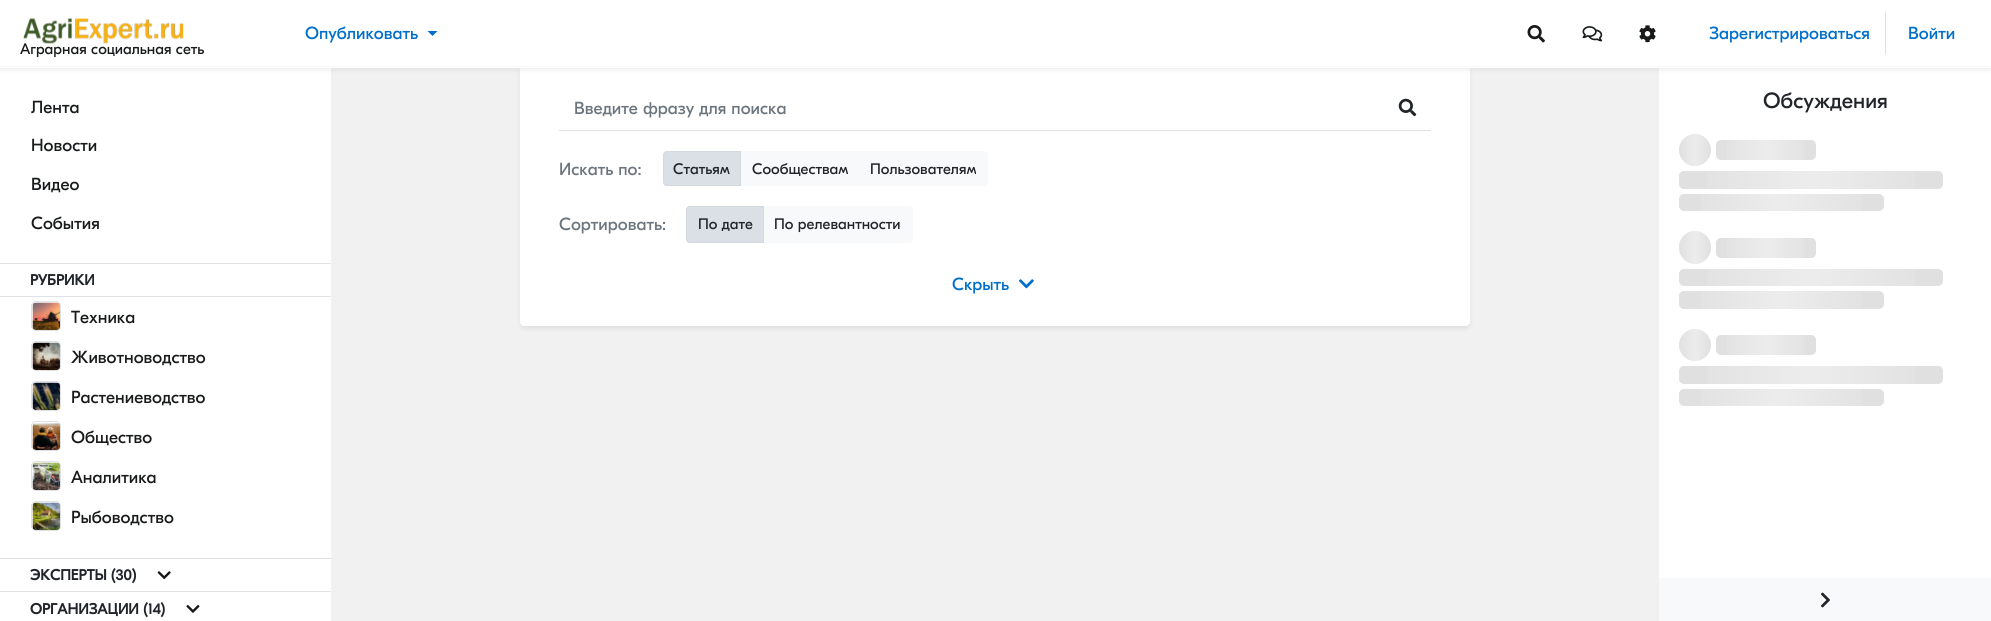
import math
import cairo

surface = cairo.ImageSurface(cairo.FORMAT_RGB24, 1991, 621)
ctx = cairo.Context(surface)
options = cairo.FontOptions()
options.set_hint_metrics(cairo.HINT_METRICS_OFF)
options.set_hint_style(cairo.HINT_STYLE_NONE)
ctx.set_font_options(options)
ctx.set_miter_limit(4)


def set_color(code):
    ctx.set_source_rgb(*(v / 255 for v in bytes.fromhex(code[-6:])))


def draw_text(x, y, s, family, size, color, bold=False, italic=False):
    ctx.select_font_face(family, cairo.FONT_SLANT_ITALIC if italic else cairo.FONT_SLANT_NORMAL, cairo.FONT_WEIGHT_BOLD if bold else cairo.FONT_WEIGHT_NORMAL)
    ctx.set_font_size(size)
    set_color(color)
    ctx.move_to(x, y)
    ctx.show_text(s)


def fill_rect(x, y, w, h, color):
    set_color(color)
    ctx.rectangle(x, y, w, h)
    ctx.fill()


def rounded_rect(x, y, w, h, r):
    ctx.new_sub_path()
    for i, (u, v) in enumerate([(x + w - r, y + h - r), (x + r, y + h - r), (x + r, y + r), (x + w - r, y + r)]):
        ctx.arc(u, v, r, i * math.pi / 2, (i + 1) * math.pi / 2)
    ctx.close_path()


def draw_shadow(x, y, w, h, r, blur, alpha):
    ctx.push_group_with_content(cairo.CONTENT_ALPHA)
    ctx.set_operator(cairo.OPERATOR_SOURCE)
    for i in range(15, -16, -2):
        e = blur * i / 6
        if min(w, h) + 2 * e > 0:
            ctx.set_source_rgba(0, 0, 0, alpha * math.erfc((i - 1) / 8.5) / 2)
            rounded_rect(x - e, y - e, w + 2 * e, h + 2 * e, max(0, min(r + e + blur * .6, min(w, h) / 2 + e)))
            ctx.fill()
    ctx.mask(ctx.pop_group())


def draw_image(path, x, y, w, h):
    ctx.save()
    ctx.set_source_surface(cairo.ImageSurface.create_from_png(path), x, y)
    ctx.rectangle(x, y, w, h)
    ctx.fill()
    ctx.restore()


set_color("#ffffff")
ctx.paint()
fill_rect(331, 68, 1328, 553, "#f1f1f1")
set_color("#000000")
draw_shadow(520, 70, 950, 259, 4, 2.5, 0.07)
set_color("#ffffff")
ctx.new_path()
ctx.move_to(520, 68)
ctx.line_to(1470, 68)
ctx.line_to(1470, 322)
ctx.curve_to(1470, 324, 1468, 326, 1466, 326)
ctx.line_to(524, 326)
ctx.curve_to(522, 326, 520, 324, 520, 322)
ctx.close_path()
ctx.fill()
ctx.save()
ctx.set_fill_rule(cairo.FILL_RULE_EVEN_ODD)
ctx.new_path()
ctx.move_to(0, 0)
ctx.line_to(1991, 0)
ctx.line_to(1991, 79)
ctx.line_to(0, 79)
ctx.close_path()
ctx.move_to(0, 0)
ctx.line_to(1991, 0)
ctx.line_to(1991, 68)
ctx.line_to(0, 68)
ctx.close_path()
ctx.clip()
set_color("#000000")
draw_shadow(0, 3, 1991, 67, 0, 2.5, 0.07)
ctx.restore()
fill_rect(0, 66, 1991, 1, "#f8f9fa")
draw_text(305, 39, "Опубликовать", "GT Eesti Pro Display", 17.5, "#006fca")
ctx.new_path()
ctx.move_to(427.5, 31)
ctx.line_to(437.5, 31)
ctx.line_to(432.5, 36)
ctx.close_path()
ctx.fill()
draw_image("assets/img1.png", 1527, 25, 18, 18)
draw_image("assets/img2.png", 1582, 26, 21, 16)
draw_image("assets/img3.png", 1639, 25, 17, 18)
set_color("#dee2e6")
ctx.new_path()
ctx.move_to(1886, 11)
ctx.line_to(1886, 55)
ctx.line_to(1885, 54)
ctx.line_to(1885, 12)
ctx.close_path()
ctx.fill()
draw_text(1709, 39, "Зарегистрироваться", "GT Eesti Pro Display", 17.5, "#006fca")
draw_text(1908, 39, "Войти", "GT Eesti Pro Display", 17.5, "#006fca")
draw_image("assets/img4.png", 23, 18, 161, 26)
draw_text(20, 54, "Аграрная социальная сеть", "GT Eesti Pro Display", 15.25, "#181a1b")
draw_text(31, 113, "Лента", "GT Eesti Pro Display", 17.5, "#181a1b")
draw_text(31, 151, "Новости", "GT Eesti Pro Display", 17.5, "#181a1b")
draw_text(31, 190, "Видео", "GT Eesti Pro Display", 17.5, "#181a1b")
draw_text(31, 229, "События", "GT Eesti Pro Display", 17.5, "#181a1b")
fill_rect(0, 263, 331, 1, "#dee2e6")
fill_rect(0, 296, 331, 1, "#dee2e6")
draw_text(30, 285, "РУБРИКИ", "GT Eesti Pro Display", 15, "#212529", bold=True)
rounded_rect(31.5, 301.5, 29, 29, 4.5)
set_color("#dee2e6")
ctx.set_line_width(1)
ctx.stroke()
draw_image("assets/img5.png", 32, 302, 28, 28)
draw_text(71, 323, "Техника", "GT Eesti Pro Display", 17.5, "#181a1b")
rounded_rect(31.5, 341.5, 29, 29, 4.5)
set_color("#dee2e6")
ctx.stroke()
draw_image("assets/img6.png", 32, 342, 28, 28)
draw_text(71, 363, "Животноводство", "GT Eesti Pro Display", 17.5, "#181a1b")
rounded_rect(31.5, 381.5, 29, 29, 4.5)
set_color("#dee2e6")
ctx.stroke()
draw_image("assets/img7.png", 32, 382, 28, 28)
draw_text(71, 403, "Растениеводство", "GT Eesti Pro Display", 17.5, "#181a1b")
rounded_rect(31.5, 421.5, 29, 29, 4.5)
set_color("#dee2e6")
ctx.stroke()
draw_image("assets/img8.png", 32, 422, 28, 28)
draw_text(71, 443, "Общество", "GT Eesti Pro Display", 17.5, "#181a1b")
rounded_rect(31.5, 461.5, 29, 29, 4.5)
set_color("#dee2e6")
ctx.stroke()
draw_image("assets/img9.png", 32, 462, 28, 28)
draw_text(71, 483, "Аналитика", "GT Eesti Pro Display", 17.5, "#181a1b")
rounded_rect(31.5, 501.5, 29, 29, 4.5)
set_color("#dee2e6")
ctx.stroke()
draw_image("assets/img10.png", 32, 502, 28, 28)
draw_text(71, 523, "Рыбоводство", "GT Eesti Pro Display", 17.5, "#181a1b")
fill_rect(0, 558, 331, 1, "#dee2e6")
fill_rect(0, 591, 331, 1, "#dee2e6")
draw_text(30, 580, "ЭКСПЕРТЫ (30)", "GT Eesti Pro Display", 15, "#212529", bold=True)
draw_image("assets/img11.png", 157, 571, 14, 9)
draw_text(30, 614, "ОРГАНИЗАЦИИ (14)", "GT Eesti Pro Display", 15, "#212529", bold=True)
draw_image("assets/img12.png", 186, 605, 14, 8)
fill_rect(559, 130, 872, 1, "#dee2e6")
draw_text(574, 114, "Введите фразу для поиска", "GT Eesti Pro Display", 17.5, "#6c757d")
draw_image("assets/img13.png", 1398, 98, 19, 19)
draw_text(559, 175, "Искать по:", "GT Eesti Pro Display", 17.5, "#6c757d")
set_color("#dae0e5")
ctx.new_path()
ctx.move_to(667, 151.5)
ctx.line_to(740.5, 151.5)
ctx.line_to(740.5, 185.5)
ctx.line_to(667, 185.5)
ctx.curve_to(665, 185.5, 663.5, 184, 663.5, 182)
ctx.line_to(663.5, 155)
ctx.curve_to(663.5, 153, 665, 151.5, 667, 151.5)
ctx.close_path()
ctx.fill_preserve()
set_color("#d3d9df")
ctx.stroke()
draw_text(673, 174, "Статьям", "GT Eesti Pro Display", 15.25, "#212529")
fill_rect(741, 151, 118, 35, "#f8f9fa")
draw_text(752, 174, "Сообществам", "GT Eesti Pro Display", 15.25, "#212529")
set_color("#f8f9fa")
ctx.new_path()
ctx.move_to(859, 151)
ctx.line_to(984, 151)
ctx.curve_to(986, 151, 988, 153, 988, 155)
ctx.line_to(988, 182)
ctx.curve_to(988, 184, 986, 186, 984, 186)
ctx.line_to(859, 186)
ctx.close_path()
ctx.fill()
draw_text(870, 174, "Пользователям", "GT Eesti Pro Display", 15.25, "#212529")
draw_text(559, 230, "Сортировать:", "GT Eesti Pro Display", 17.5, "#6c757d")
set_color("#f8f9fa")
ctx.new_path()
ctx.move_to(763, 206)
ctx.line_to(909, 206)
ctx.curve_to(911, 206, 913, 208, 913, 210)
ctx.line_to(913, 239)
ctx.curve_to(913, 241, 911, 243, 909, 243)
ctx.line_to(763, 243)
ctx.close_path()
ctx.fill()
set_color("#dae0e5")
ctx.new_path()
ctx.move_to(690, 206.5)
ctx.line_to(763.5, 206.5)
ctx.line_to(763.5, 242.5)
ctx.line_to(690, 242.5)
ctx.curve_to(688, 242.5, 686.5, 241, 686.5, 239)
ctx.line_to(686.5, 210)
ctx.curve_to(686.5, 208, 688, 206.5, 690, 206.5)
ctx.close_path()
ctx.fill_preserve()
set_color("#d3d9df")
ctx.stroke()
draw_text(698, 229, "По дате", "GT Eesti Pro Display", 15.25, "#212529")
draw_text(774, 229, "По релевантности", "GT Eesti Pro Display", 15.25, "#212529")
draw_text(952, 290, "Скрыть", "GT Eesti Pro Display", 17.5, "#006fca")
draw_image("assets/img14.png", 1019, 279, 15, 10)
draw_text(1763, 108, "Обсуждения", "GT Eesti Pro Display", 22, "#212529")
set_color("#e0e0e0")
ctx.new_path()
ctx.arc(1695, 150, 16, 0, 2 * math.pi)
ctx.fill()
gradient = cairo.LinearGradient(1679, 150, 1711, 150)
gradient.add_color_stop_rgba(0, 1, 1, 1, 0)
gradient.add_color_stop_rgba(0.5, 1, 1, 1, 0.4)
gradient.add_color_stop_rgba(1, 1, 1, 1, 0)
ctx.set_source(gradient)
ctx.arc(1695, 150, 16, 0, 2 * math.pi)
ctx.fill()
set_color("#e0e0e0")
rounded_rect(1716, 140, 100, 20, 5)
ctx.fill()
gradient = cairo.LinearGradient(1716, 150, 1816, 150)
gradient.add_color_stop_rgba(0, 1, 1, 1, 0)
gradient.add_color_stop_rgba(0.5, 1, 1, 1, 0.4)
gradient.add_color_stop_rgba(1, 1, 1, 1, 0)
ctx.set_source(gradient)
ctx.rectangle(1727, 140, 78, 20)
ctx.fill()
set_color("#e0e0e0")
rounded_rect(1679, 171, 264, 18, 5)
ctx.fill()
gradient = cairo.LinearGradient(1679, 180, 1943, 180)
gradient.add_color_stop_rgba(0, 1, 1, 1, 0)
gradient.add_color_stop_rgba(0.5, 1, 1, 1, 0.4)
gradient.add_color_stop_rgba(1, 1, 1, 1, 0)
ctx.set_source(gradient)
ctx.rectangle(1707, 171, 208, 18)
ctx.fill()
set_color("#e0e0e0")
rounded_rect(1679, 194, 205, 17, 5)
ctx.fill()
gradient = cairo.LinearGradient(1679, 203, 1884, 203)
gradient.add_color_stop_rgba(0, 1, 1, 1, 0)
gradient.add_color_stop_rgba(0.5, 1, 1, 1, 0.4)
gradient.add_color_stop_rgba(1, 1, 1, 1, 0)
ctx.set_source(gradient)
ctx.rectangle(1701, 194, 161, 17)
ctx.fill()
set_color("#e0e0e0")
rounded_rect(1679, 231, 32, 33, 16)
ctx.fill()
gradient = cairo.LinearGradient(1679, 248, 1711, 248)
gradient.add_color_stop_rgba(0, 1, 1, 1, 0)
gradient.add_color_stop_rgba(0.5, 1, 1, 1, 0.4)
gradient.add_color_stop_rgba(1, 1, 1, 1, 0)
ctx.set_source(gradient)
rounded_rect(1679, 231, 32, 33, 16)
ctx.fill()
set_color("#e0e0e0")
rounded_rect(1716, 238, 100, 20, 5)
ctx.fill()
gradient = cairo.LinearGradient(1716, 248, 1816, 248)
gradient.add_color_stop_rgba(0, 1, 1, 1, 0)
gradient.add_color_stop_rgba(0.5, 1, 1, 1, 0.4)
gradient.add_color_stop_rgba(1, 1, 1, 1, 0)
ctx.set_source(gradient)
ctx.rectangle(1727, 238, 78, 20)
ctx.fill()
set_color("#e0e0e0")
rounded_rect(1679, 269, 264, 17, 5)
ctx.fill()
gradient = cairo.LinearGradient(1679, 278, 1943, 278)
gradient.add_color_stop_rgba(0, 1, 1, 1, 0)
gradient.add_color_stop_rgba(0.5, 1, 1, 1, 0.4)
gradient.add_color_stop_rgba(1, 1, 1, 1, 0)
ctx.set_source(gradient)
ctx.rectangle(1707, 269, 208, 17)
ctx.fill()
set_color("#e0e0e0")
rounded_rect(1679, 291, 205, 18, 5)
ctx.fill()
gradient = cairo.LinearGradient(1679, 300, 1884, 300)
gradient.add_color_stop_rgba(0, 1, 1, 1, 0)
gradient.add_color_stop_rgba(0.5, 1, 1, 1, 0.4)
gradient.add_color_stop_rgba(1, 1, 1, 1, 0)
ctx.set_source(gradient)
ctx.rectangle(1701, 291, 161, 18)
ctx.fill()
set_color("#e0e0e0")
ctx.arc(1695, 345, 16, 0, 2 * math.pi)
ctx.fill()
gradient = cairo.LinearGradient(1679, 345, 1711, 345)
gradient.add_color_stop_rgba(0, 1, 1, 1, 0)
gradient.add_color_stop_rgba(0.5, 1, 1, 1, 0.4)
gradient.add_color_stop_rgba(1, 1, 1, 1, 0)
ctx.set_source(gradient)
ctx.arc(1695, 345, 16, 0, 2 * math.pi)
ctx.fill()
set_color("#e0e0e0")
rounded_rect(1716, 335, 100, 20, 5)
ctx.fill()
gradient = cairo.LinearGradient(1716, 345, 1816, 345)
gradient.add_color_stop_rgba(0, 1, 1, 1, 0)
gradient.add_color_stop_rgba(0.5, 1, 1, 1, 0.4)
gradient.add_color_stop_rgba(1, 1, 1, 1, 0)
ctx.set_source(gradient)
ctx.rectangle(1727, 335, 78, 20)
ctx.fill()
set_color("#e0e0e0")
rounded_rect(1679, 366, 264, 18, 5)
ctx.fill()
gradient = cairo.LinearGradient(1679, 375, 1943, 375)
gradient.add_color_stop_rgba(0, 1, 1, 1, 0)
gradient.add_color_stop_rgba(0.5, 1, 1, 1, 0.4)
gradient.add_color_stop_rgba(1, 1, 1, 1, 0)
ctx.set_source(gradient)
ctx.rectangle(1707, 366, 208, 18)
ctx.fill()
set_color("#e0e0e0")
rounded_rect(1679, 389, 205, 17, 5)
ctx.fill()
gradient = cairo.LinearGradient(1679, 398, 1884, 398)
gradient.add_color_stop_rgba(0, 1, 1, 1, 0)
gradient.add_color_stop_rgba(0.5, 1, 1, 1, 0.4)
gradient.add_color_stop_rgba(1, 1, 1, 1, 0)
ctx.set_source(gradient)
ctx.rectangle(1701, 389, 161, 17)
ctx.fill()
fill_rect(1659, 578, 332, 43, "#f8f9fa")
draw_image("assets/img15.png", 1821, 592, 9, 16)
surface.write_to_png("output.png")
